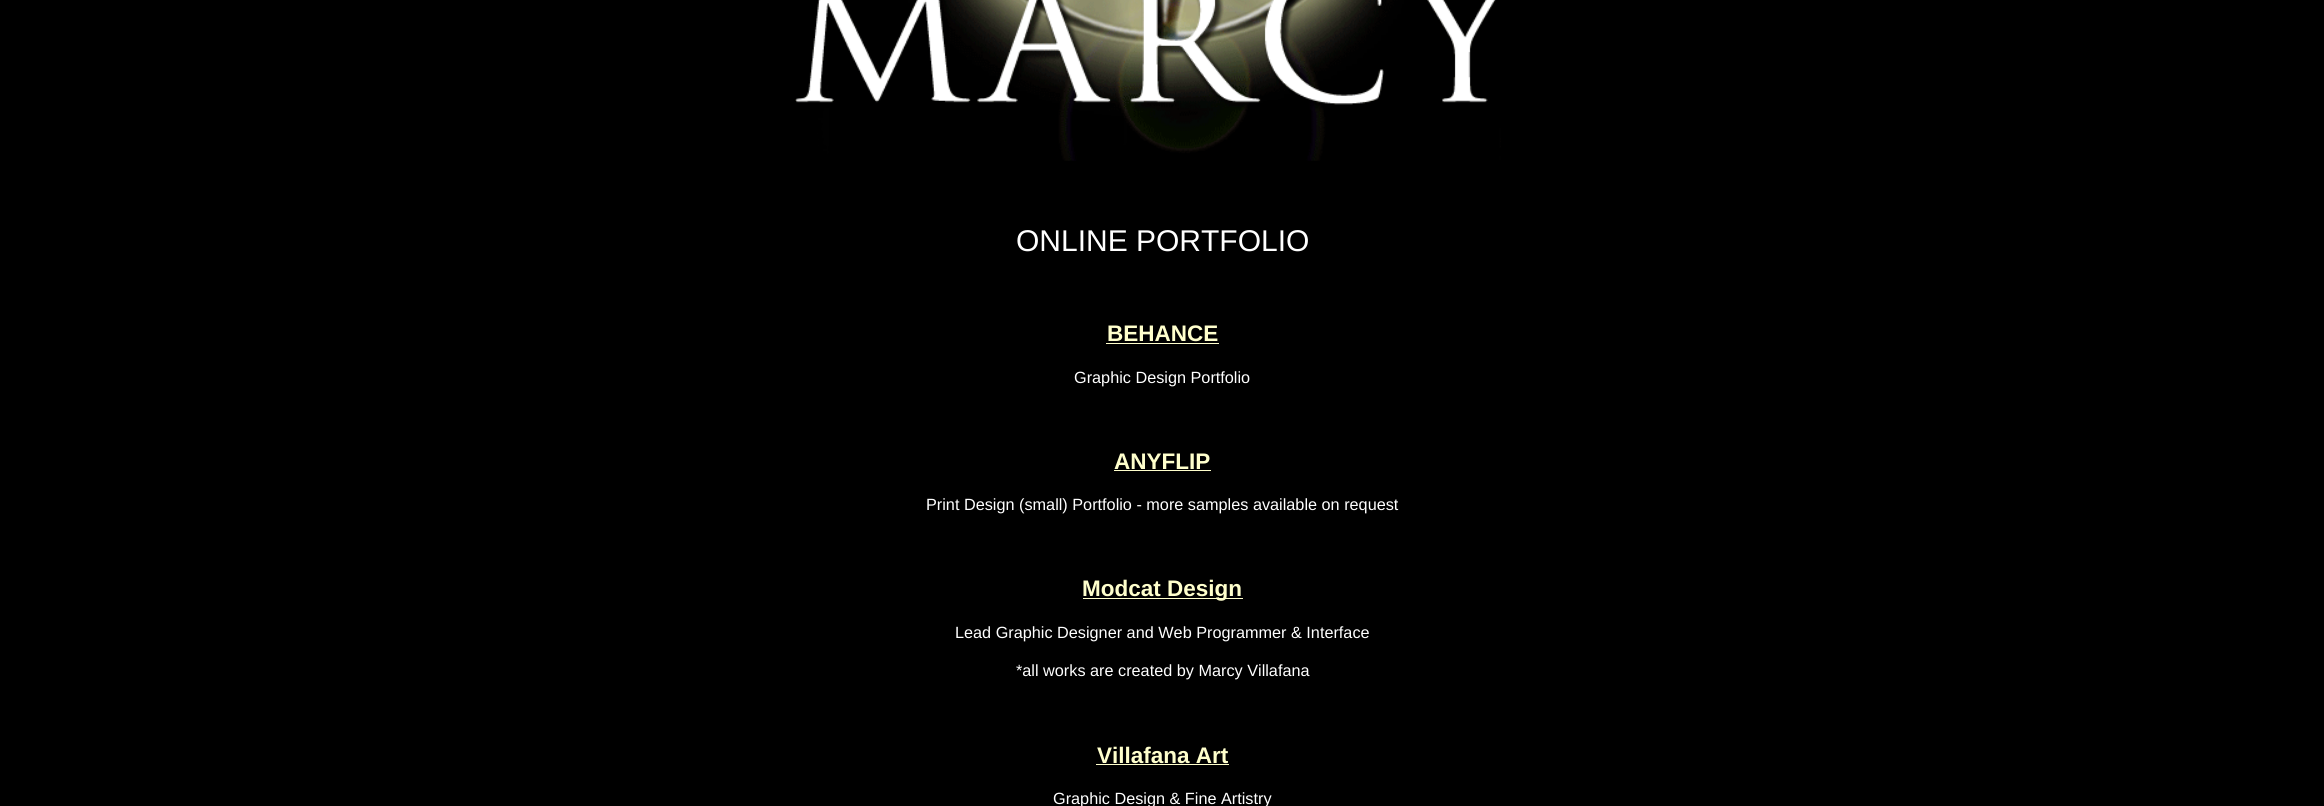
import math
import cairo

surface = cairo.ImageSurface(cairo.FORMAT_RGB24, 2324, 806)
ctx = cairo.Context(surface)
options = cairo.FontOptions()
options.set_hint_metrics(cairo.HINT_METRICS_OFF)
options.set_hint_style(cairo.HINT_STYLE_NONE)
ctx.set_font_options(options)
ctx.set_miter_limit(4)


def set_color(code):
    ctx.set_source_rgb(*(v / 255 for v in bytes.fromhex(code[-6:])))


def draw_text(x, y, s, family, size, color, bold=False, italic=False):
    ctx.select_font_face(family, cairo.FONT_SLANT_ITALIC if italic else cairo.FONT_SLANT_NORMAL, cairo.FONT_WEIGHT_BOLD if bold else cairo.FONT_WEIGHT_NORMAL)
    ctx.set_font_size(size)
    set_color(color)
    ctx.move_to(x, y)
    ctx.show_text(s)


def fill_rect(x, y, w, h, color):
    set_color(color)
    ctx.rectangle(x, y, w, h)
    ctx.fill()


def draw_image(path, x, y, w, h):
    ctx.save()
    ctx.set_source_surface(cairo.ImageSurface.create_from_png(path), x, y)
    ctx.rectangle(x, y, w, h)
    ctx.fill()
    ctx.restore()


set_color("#000000")
ctx.paint()
draw_image("assets/img1.png", 795, 0, 706, 161)
draw_text(1016, 251, "ONLINE PORTFOLIO", "Liberation Sans", 30, "#ffffff")
draw_text(1107, 341, "BEHANCE", "Liberation Sans", 22.5, "#ffffcc", bold=True)
fill_rect(1106, 343, 113, 1, "#ffffcc")
draw_text(1074, 383, "Graphic Design Portfolio", "Liberation Sans", 16.25, "#ffffff")
draw_text(1114, 469, "ANYFLIP", "Liberation Sans", 22.5, "#ffffcc", bold=True)
fill_rect(1114, 470, 97, 1, "#ffffcc")
draw_text(926, 510, "Print Design (small) Portfolio - more samples available on request", "Liberation Sans", 16.25, "#ffffff")
fill_rect(1083, 598, 160, 1, "#ffffcc")
draw_text(1082, 596, "Modcat Design", "Liberation Sans", 22.5, "#ffffcc", bold=True)
draw_text(955, 638, "Lead Graphic Designer and Web Programmer & Interface", "Liberation Sans", 16.25, "#ffffff")
draw_text(1016, 676, "*all works are created by Marcy Villafana", "Liberation Sans", 16.25, "#ffffff")
draw_text(1097, 763, "Villafana Art", "Liberation Sans", 22.5, "#ffffcc", bold=True)
fill_rect(1096, 764, 133, 1, "#ffffcc")
draw_text(1053, 804, "Graphic Design & Fine Artistry", "Liberation Sans", 16.25, "#ffffff")
surface.write_to_png("output.png")
